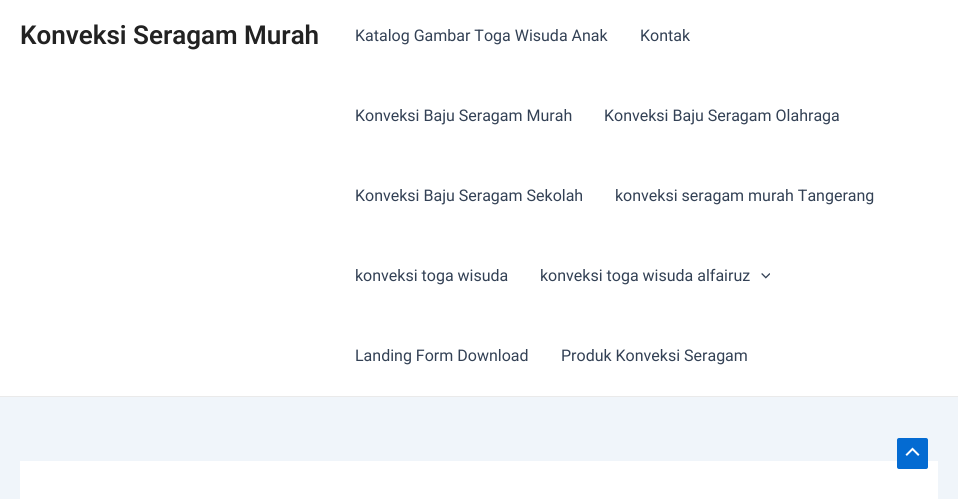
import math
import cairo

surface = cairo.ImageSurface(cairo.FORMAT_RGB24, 958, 499)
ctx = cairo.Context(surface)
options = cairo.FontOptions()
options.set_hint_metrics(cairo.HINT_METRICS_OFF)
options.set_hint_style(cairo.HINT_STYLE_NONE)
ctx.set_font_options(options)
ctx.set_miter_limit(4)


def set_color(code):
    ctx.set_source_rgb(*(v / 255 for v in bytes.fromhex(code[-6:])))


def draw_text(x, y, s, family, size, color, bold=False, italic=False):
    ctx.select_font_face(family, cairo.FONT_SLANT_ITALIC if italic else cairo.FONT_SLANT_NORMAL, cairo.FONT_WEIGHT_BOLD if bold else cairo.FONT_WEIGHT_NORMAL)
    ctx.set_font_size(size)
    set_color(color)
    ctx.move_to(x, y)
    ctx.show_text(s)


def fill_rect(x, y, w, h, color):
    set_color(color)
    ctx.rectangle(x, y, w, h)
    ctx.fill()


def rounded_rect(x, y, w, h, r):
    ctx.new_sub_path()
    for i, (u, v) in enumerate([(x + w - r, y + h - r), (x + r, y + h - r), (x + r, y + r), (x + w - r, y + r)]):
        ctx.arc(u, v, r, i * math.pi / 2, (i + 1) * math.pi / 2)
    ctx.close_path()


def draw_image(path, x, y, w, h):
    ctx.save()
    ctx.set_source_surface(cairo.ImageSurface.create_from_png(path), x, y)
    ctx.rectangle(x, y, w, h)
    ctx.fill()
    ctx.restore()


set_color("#f0f5fa")
ctx.paint()
fill_rect(0, 0, 958, 396, "#ffffff")
fill_rect(0, 396, 958, 1, "#eaeaea")
draw_text(20, 44, "Konveksi Seragam Murah", "Roboto SemiBold", 26, "#222222")
draw_text(355, 41, "Katalog Gambar Toga Wisuda Anak", "Roboto", 16, "#334155")
draw_text(640, 41, "Kontak", "Roboto", 16, "#334155")
draw_text(355, 121, "Konveksi Baju Seragam Murah", "Roboto", 16, "#334155")
draw_text(604, 121, "Konveksi Baju Seragam Olahraga", "Roboto", 16, "#334155")
draw_text(355, 201, "Konveksi Baju Seragam Sekolah", "Roboto", 16, "#334155")
draw_text(615, 201, "konveksi seragam murah Tangerang", "Roboto", 16, "#334155")
draw_text(355, 281, "konveksi toga wisuda", "Roboto", 16, "#334155")
draw_text(540, 281, "konveksi toga wisuda alfairuz", "Roboto", 16, "#334155")
draw_image("assets/img1.png", 761, 273, 9, 6)
draw_text(355, 361, "Landing Form Download", "Roboto", 16, "#334155")
draw_text(561, 361, "Produk Konveksi Seragam", "Roboto", 16, "#334155")
fill_rect(20, 461, 918, 38, "#ffffff")
set_color("#046bd2")
rounded_rect(897, 438, 31, 31, 2)
ctx.fill()
draw_image("assets/img2.png", 905, 447, 15, 9)
surface.write_to_png("output.png")
